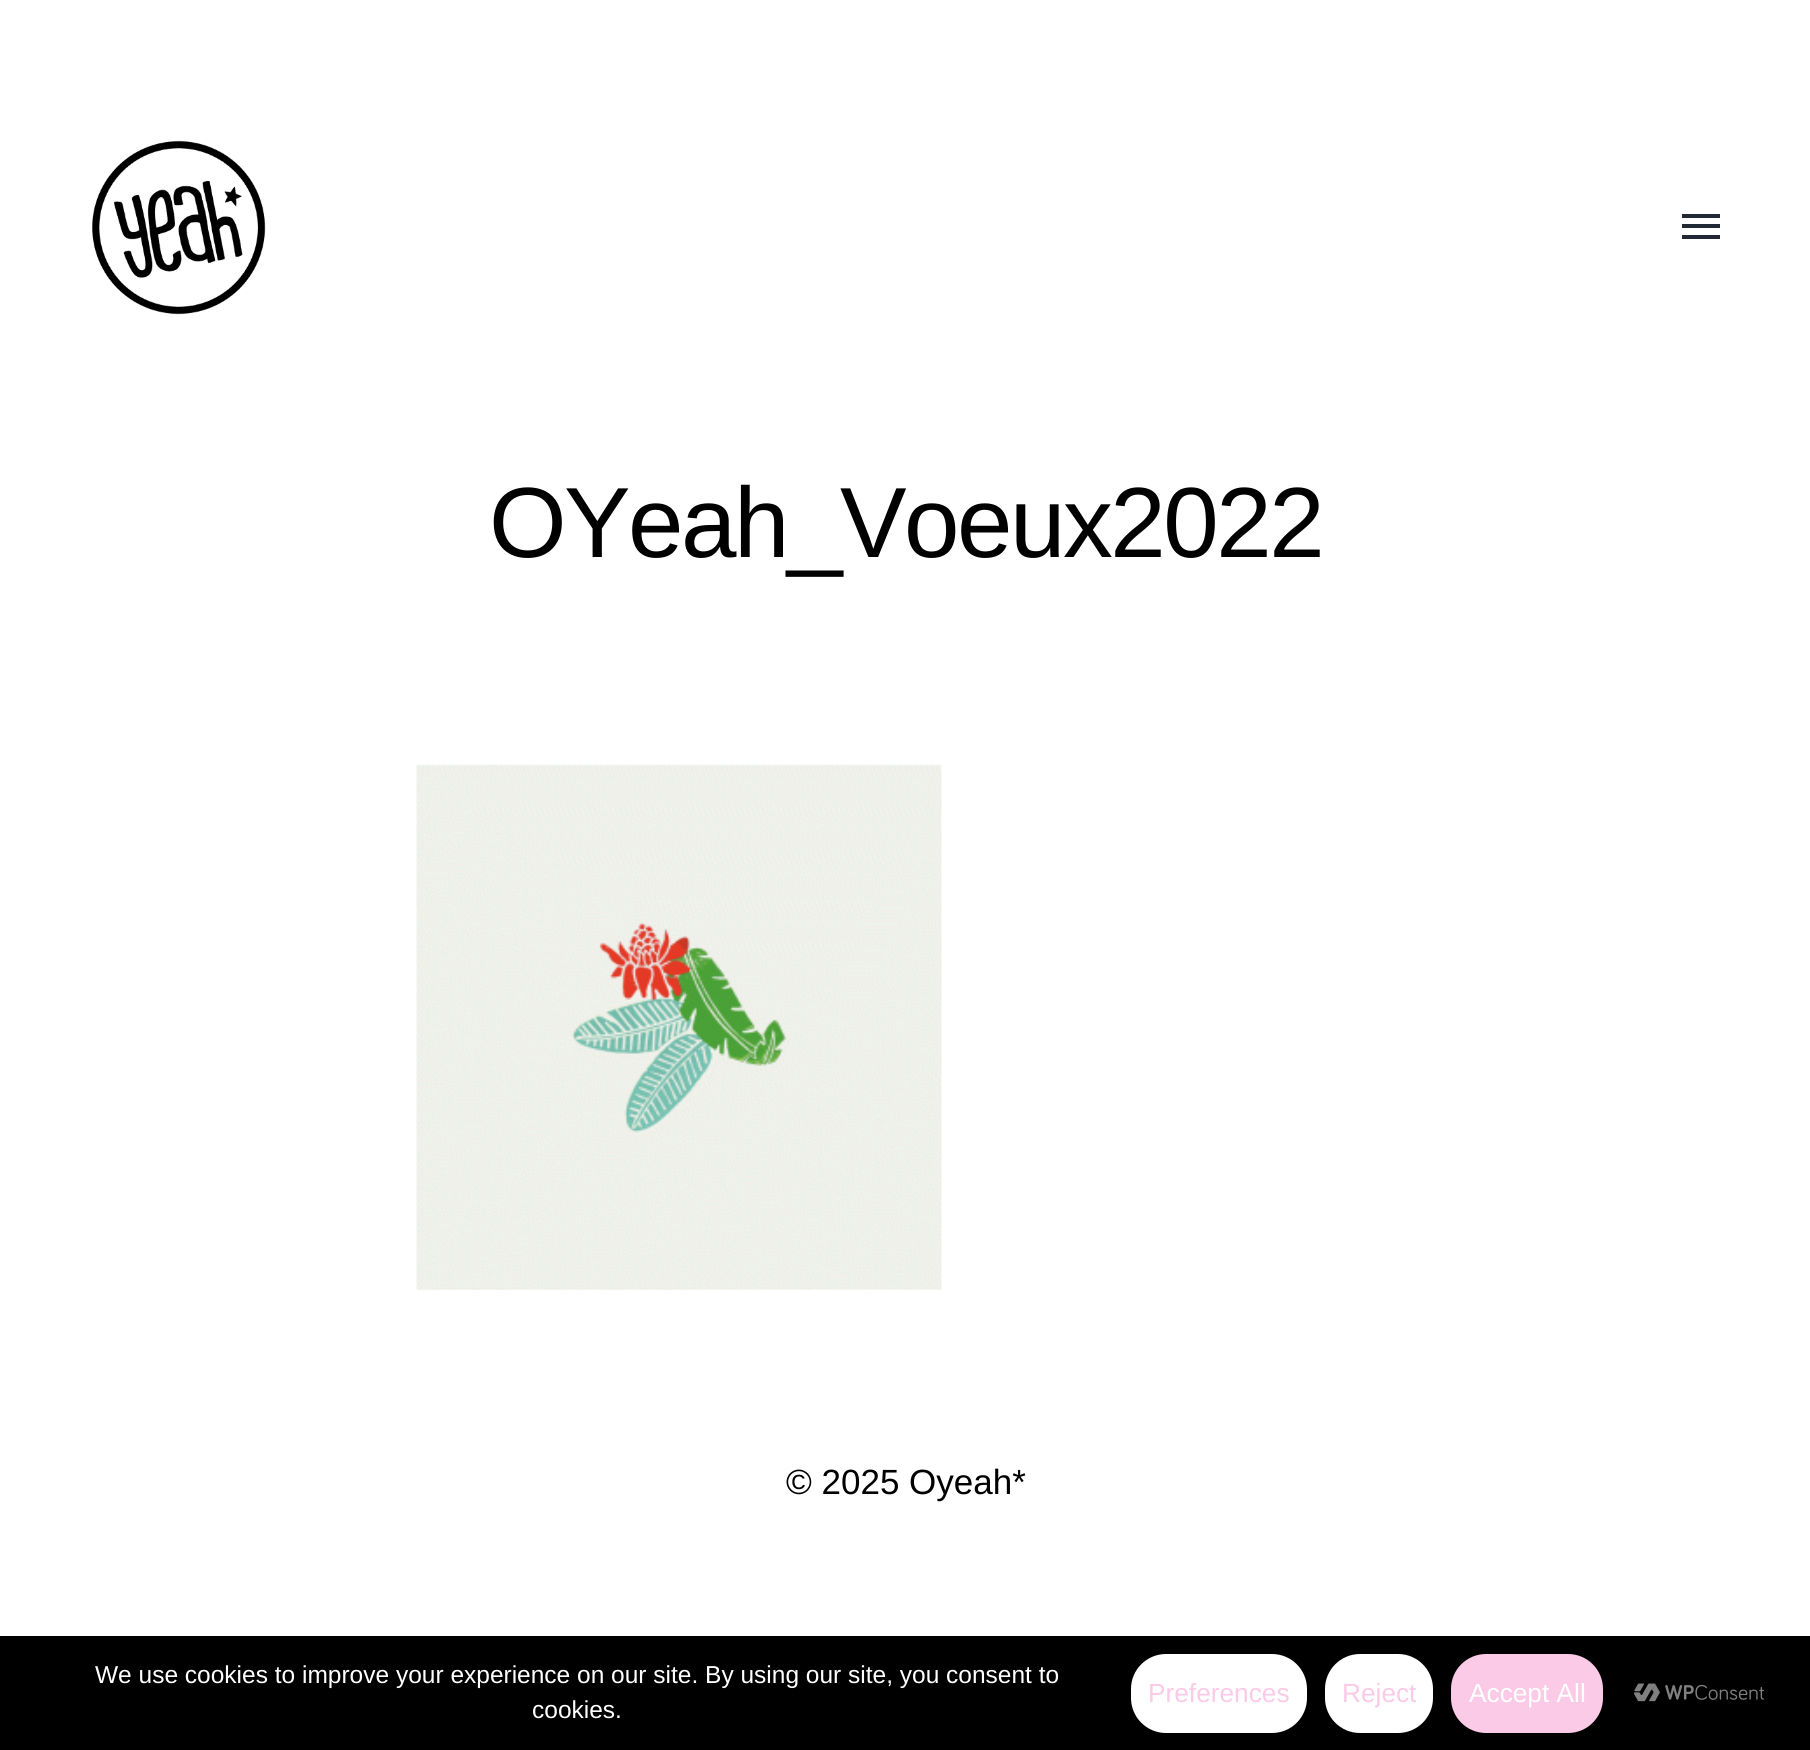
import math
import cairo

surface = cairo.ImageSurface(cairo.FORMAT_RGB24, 1810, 1750)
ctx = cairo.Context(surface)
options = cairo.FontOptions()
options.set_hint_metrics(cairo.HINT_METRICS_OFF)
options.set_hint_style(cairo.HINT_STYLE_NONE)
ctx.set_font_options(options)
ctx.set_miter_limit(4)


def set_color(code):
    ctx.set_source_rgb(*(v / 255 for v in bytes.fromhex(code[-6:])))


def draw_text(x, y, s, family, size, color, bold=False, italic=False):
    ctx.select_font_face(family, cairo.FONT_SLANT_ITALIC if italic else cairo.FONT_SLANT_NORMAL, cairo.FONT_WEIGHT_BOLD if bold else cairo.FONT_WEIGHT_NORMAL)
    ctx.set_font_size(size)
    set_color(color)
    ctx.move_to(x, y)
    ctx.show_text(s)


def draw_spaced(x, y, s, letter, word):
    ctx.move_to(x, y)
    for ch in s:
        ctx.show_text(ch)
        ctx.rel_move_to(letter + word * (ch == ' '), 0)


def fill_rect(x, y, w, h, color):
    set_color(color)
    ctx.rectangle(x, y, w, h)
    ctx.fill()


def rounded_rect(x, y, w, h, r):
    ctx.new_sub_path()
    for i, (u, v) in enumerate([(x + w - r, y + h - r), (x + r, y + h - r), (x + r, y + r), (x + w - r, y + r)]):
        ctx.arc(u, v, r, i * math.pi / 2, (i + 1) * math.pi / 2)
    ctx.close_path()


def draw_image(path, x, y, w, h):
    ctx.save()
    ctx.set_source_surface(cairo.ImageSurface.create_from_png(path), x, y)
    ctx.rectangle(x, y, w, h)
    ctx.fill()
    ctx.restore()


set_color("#ffffff")
ctx.paint()
draw_image("assets/img1.png", 92, 140, 174, 175)
fill_rect(1682, 214, 38, 4, "#212a34")
fill_rect(1682, 224, 38, 4, "#212a34")
fill_rect(1682, 235, 38, 4, "#212a34")
ctx.select_font_face("Liberation Sans")
ctx.set_font_size(99.75)
set_color("#000000")
draw_spaced(489, 557, "OYeah_Voeux2022", -2.5, 0)
draw_image("assets/img2.png", 416, 764, 526, 526)
draw_text(786, 1494, "© 2025 Oyeah*", "Liberation Sans", 35, "#000000")
fill_rect(0, 1636, 1810, 114, "#000000")
draw_text(95, 1683, "We use cookies to improve your experience on our site. By using our site, you consent to", "Liberation Sans", 24.5, "#ffffff")
draw_text(532, 1718, "cookies.", "Liberation Sans", 24.5, "#ffffff")
rounded_rect(1131, 1654, 176, 79, 35)
ctx.fill()
draw_text(1148, 1702, "Preferences", "Liberation Sans", 26.25, "#fbcae6")
set_color("#ffffff")
rounded_rect(1325, 1654, 108, 79, 35)
ctx.fill()
draw_text(1342, 1702, "Reject", "Liberation Sans", 26.25, "#fbcae6")
rounded_rect(1451, 1654, 152, 79, 35)
ctx.fill()
draw_text(1469, 1702, "Accept All", "Liberation Sans", 26.25, "#ffffff")
draw_image("assets/img3.png", 1634, 1683, 130, 19)
surface.write_to_png("output.png")
